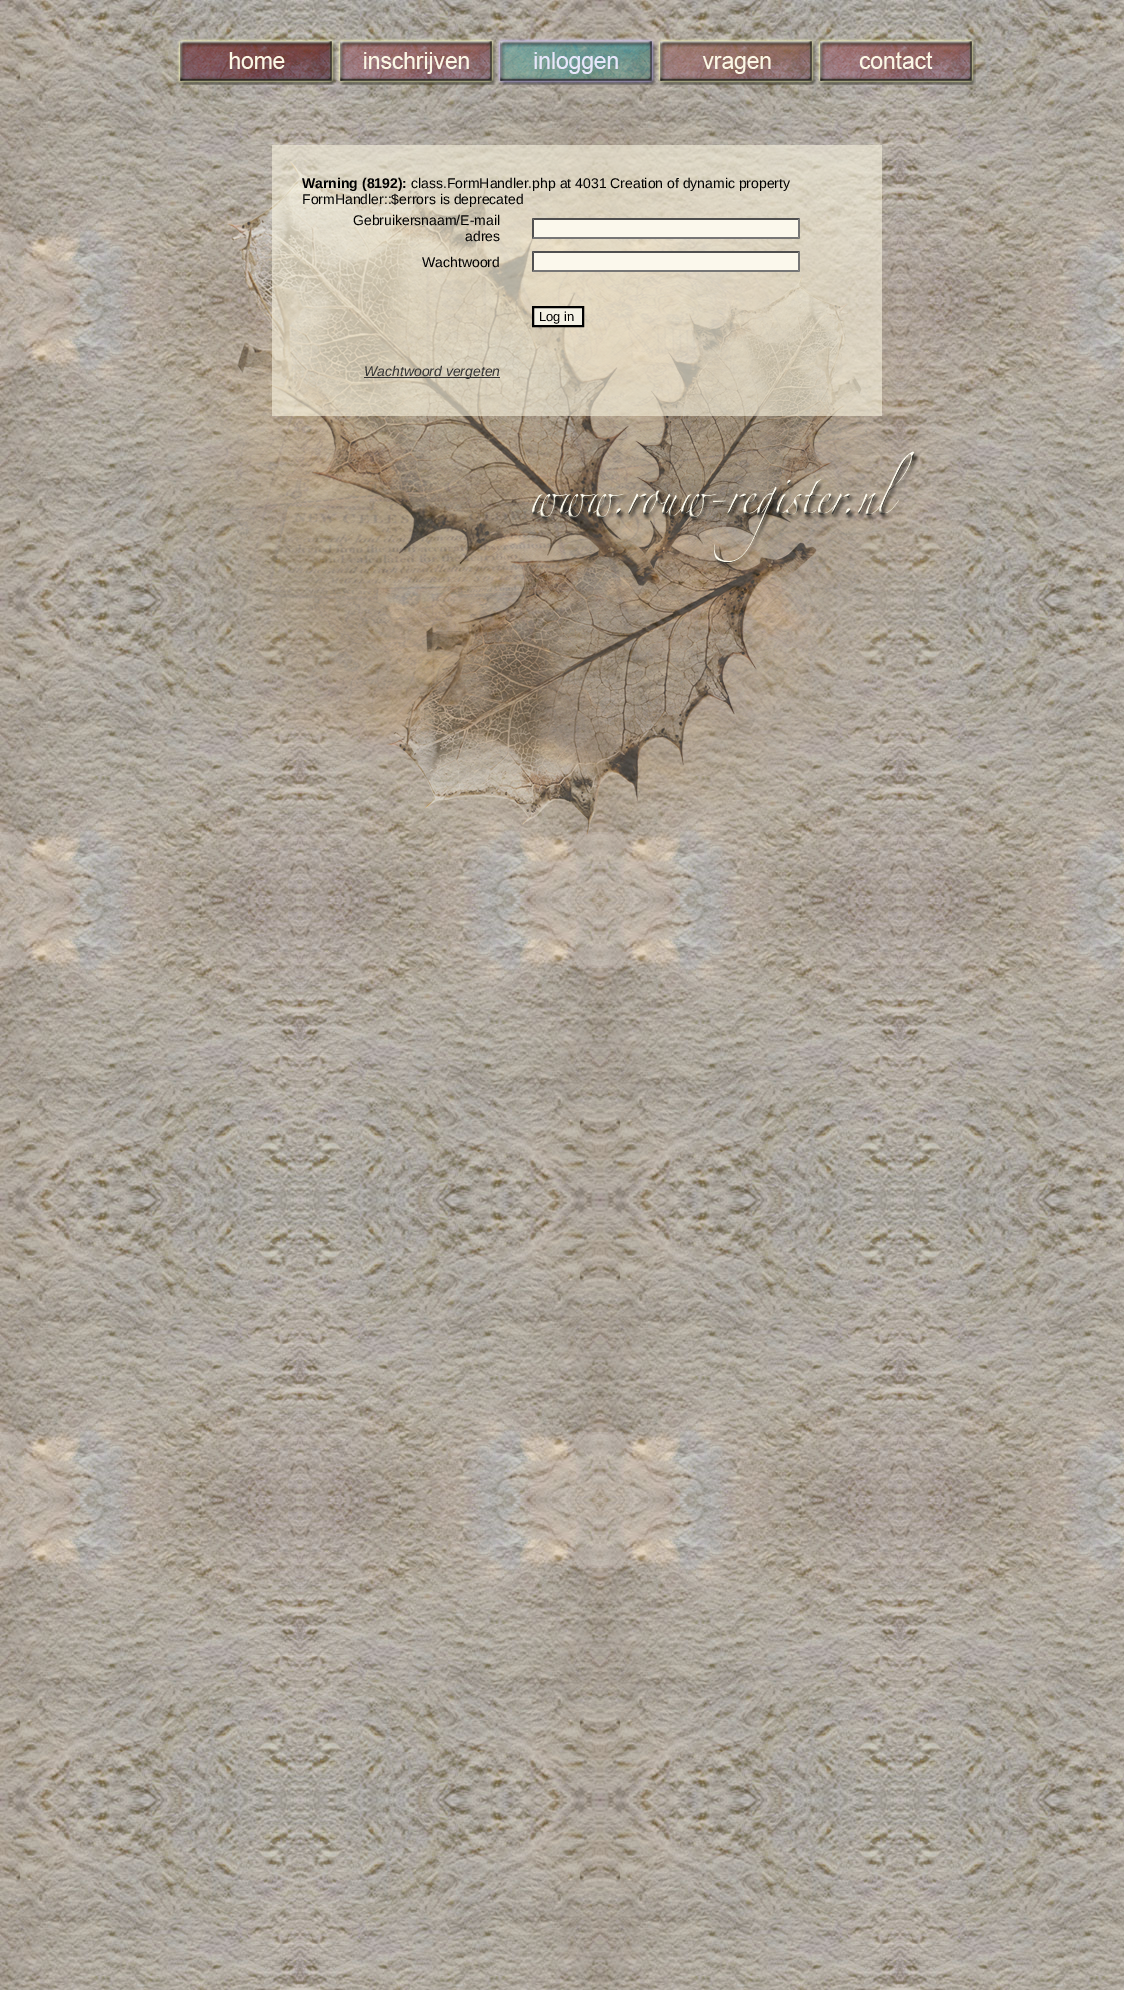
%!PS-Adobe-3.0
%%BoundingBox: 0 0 1124 1990
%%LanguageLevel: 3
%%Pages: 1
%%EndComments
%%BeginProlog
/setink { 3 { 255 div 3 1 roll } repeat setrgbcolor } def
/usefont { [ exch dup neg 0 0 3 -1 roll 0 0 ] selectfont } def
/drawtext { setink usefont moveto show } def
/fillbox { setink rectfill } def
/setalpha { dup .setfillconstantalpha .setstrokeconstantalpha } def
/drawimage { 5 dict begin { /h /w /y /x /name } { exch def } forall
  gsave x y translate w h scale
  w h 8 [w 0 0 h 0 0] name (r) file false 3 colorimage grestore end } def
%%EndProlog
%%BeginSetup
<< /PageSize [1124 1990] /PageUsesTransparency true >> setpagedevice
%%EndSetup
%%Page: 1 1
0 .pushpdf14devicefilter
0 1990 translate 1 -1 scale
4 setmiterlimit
0 0 1124 1990 255 255 255 fillbox
(assets/img1.rgb) 0 0 1124 1990 drawimage
(assets/img2.rgb) 147 128 830 734 drawimage
(assets/img3.rgb) 177 38 158 47 drawimage
(assets/img4.rgb) 335 38 161 47 drawimage
(assets/img5.rgb) 496 38 160 47 drawimage
(assets/img6.rgb) 656 38 160 47 drawimage
(assets/img7.rgb) 816 38 160 47 drawimage
0.6 setalpha
272 145 610 271 248 243 223 fillbox
1 setalpha
(Warning \(8192\):) 302 188 /LiberationSans-Bold 14 0 0 0 drawtext
(class.FormHandler.php at 4031 Creation of dynamic property) 411 188 /LiberationSans-Regular 14 0 0 0 drawtext
(FormHandler::$errors is deprecated) 302 204 /LiberationSans-Regular 14 0 0 0 drawtext
(Gebruikersnaam/E-mail) 353 225 /LiberationSans-Regular 14 0 0 0 drawtext
(adres) 465 241 /LiberationSans-Regular 14 0 0 0 drawtext
532 218 268 21 251 248 236 fillbox
79 79 79 setink
532 218 moveto 800 218 lineto 798 220 lineto 534 220 lineto closepath fill
118 118 118 setink
800 218 moveto 800 239 lineto 798 237 lineto 798 220 lineto closepath fill
800 239 moveto 532 239 lineto 534 237 lineto 798 237 lineto closepath fill
79 79 79 setink
532 239 moveto 532 218 lineto 534 220 lineto 534 237 lineto closepath fill
(Wachtwoord) 422 267 /LiberationSans-Regular 14 0 0 0 drawtext
532 251 268 21 251 248 236 fillbox
79 79 79 setink
532 251 moveto 800 251 lineto 798 253 lineto 534 253 lineto closepath fill
118 118 118 setink
800 251 moveto 800 272 lineto 798 270 lineto 798 253 lineto closepath fill
800 272 moveto 532 272 lineto 534 270 lineto 798 270 lineto closepath fill
79 79 79 setink
532 272 moveto 532 251 lineto 534 253 lineto 534 270 lineto closepath fill
244 241 229 setink
533 307 moveto 583 307 lineto 583 326 lineto 533 326 lineto closepath gsave fill grestore
0 0 0 setink
2 setlinewidth
stroke
(Log in) 539 321 /LiberationSans-Regular 13 0 0 0 drawtext
364 377 136 1 51 51 51 fillbox
(Wachtwoord vergeten) 364 376 /LiberationSans-Italic 14 51 51 51 drawtext
(assets/img8.rgb) 531 451 388 118 drawimage
.poppdf14devicefilter showpage
%%EOF
